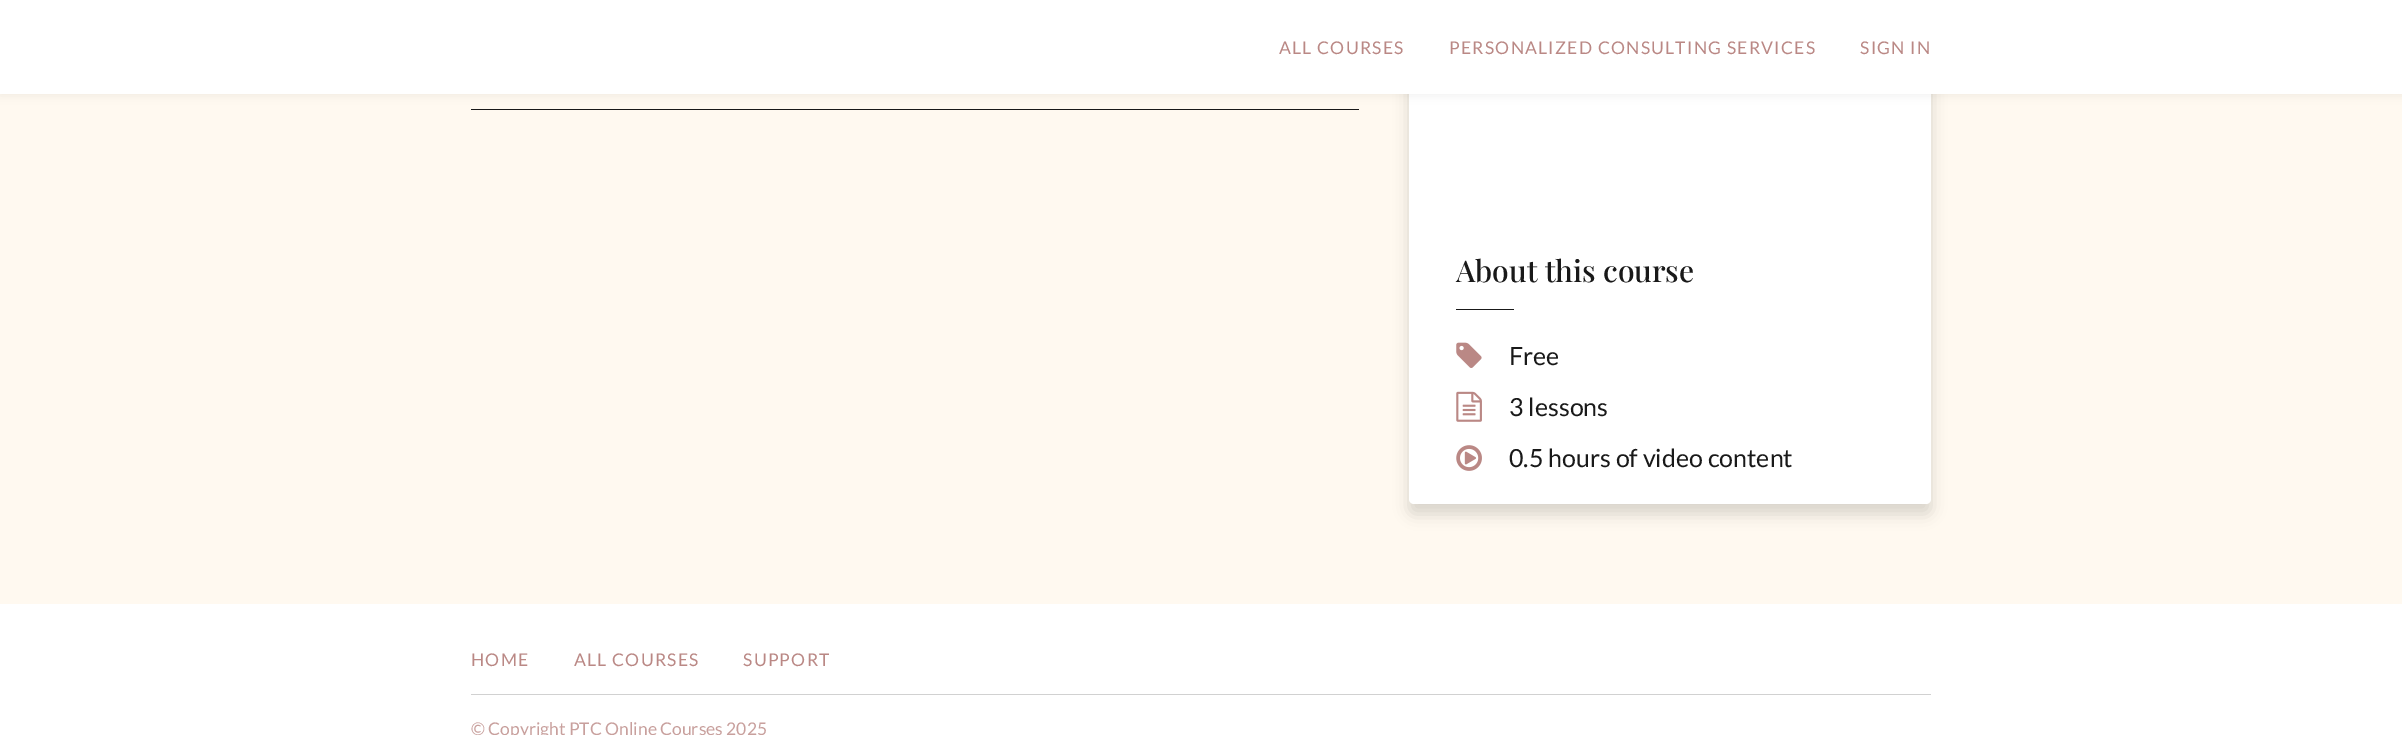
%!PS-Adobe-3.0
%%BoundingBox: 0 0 2402 735
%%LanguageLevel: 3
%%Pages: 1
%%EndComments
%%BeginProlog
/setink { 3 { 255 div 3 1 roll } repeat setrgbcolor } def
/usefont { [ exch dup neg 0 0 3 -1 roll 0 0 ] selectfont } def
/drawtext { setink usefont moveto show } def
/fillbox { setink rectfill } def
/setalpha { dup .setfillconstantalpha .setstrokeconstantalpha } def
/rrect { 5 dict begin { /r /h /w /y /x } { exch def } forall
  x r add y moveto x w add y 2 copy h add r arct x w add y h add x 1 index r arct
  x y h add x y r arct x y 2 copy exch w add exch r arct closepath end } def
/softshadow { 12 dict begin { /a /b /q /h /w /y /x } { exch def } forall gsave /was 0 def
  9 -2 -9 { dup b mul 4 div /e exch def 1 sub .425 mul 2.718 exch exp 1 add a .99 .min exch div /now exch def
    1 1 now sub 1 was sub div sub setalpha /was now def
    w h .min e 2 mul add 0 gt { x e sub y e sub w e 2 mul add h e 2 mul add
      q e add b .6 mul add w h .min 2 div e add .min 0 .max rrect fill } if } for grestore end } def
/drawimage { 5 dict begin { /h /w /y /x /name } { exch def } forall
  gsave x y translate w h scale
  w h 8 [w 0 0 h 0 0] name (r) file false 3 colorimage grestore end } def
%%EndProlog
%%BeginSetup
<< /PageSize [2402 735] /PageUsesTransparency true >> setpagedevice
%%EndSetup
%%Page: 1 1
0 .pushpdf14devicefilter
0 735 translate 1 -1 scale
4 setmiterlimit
0 0 2402 735 255 249 240 fillbox
471 109 888 1 25 25 25 fillbox
0 0 0 setink
1409 -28 522 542 5 7.5 0.15 softshadow
255 255 255 setink
1409 -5 522 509 5 rrect fill
0 0 0 setink
0 3 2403 93 0 5 0.05 softshadow
0 0 2402 94 255 255 255 fillbox
/Lato-Regular 17.5 usefont
186 136 133 setink
1279 54 moveto 1.25 0 (ALL COURSES) ashow
1449 54 moveto 1.25 0 (PERSONALIZED CONSULTING SERVICES) ashow
1860 54 moveto 1.25 0 (SIGN IN) ashow
(About this course) 1456 282 /PlayfairDisplay-Medium 30 25 25 25 drawtext
1456 309 58 1 25 25 25 fillbox
(assets/img1.rgb) 1456 342 26 26 drawimage
(Free) 1509 365 /Lato-Regular 25 25 25 25 drawtext
(assets/img2.rgb) 1456 391 26 31 drawimage
(3 lessons) 1509 416 /Lato-Regular 25 25 25 25 drawtext
(assets/img3.rgb) 1456 445 26 26 drawimage
(0.5 hours of video content) 1509 467 /Lato-Regular 25 25 25 25 drawtext
0 604 2402 131 255 255 255 fillbox
/Lato-Regular 17.5 usefont
186 136 133 setink
471 666 moveto 1.25 0 (HOME) ashow
574 666 moveto 1.25 0 (ALL COURSES) ashow
743 666 moveto 1.25 0 (SUPPORT) ashow
471 694 1460 1 209 209 209 fillbox
(© Copyright PTC Online Courses 2025) 471 735 /Lato-Regular 17.5 200 160 157 drawtext
.poppdf14devicefilter showpage
%%EOF
